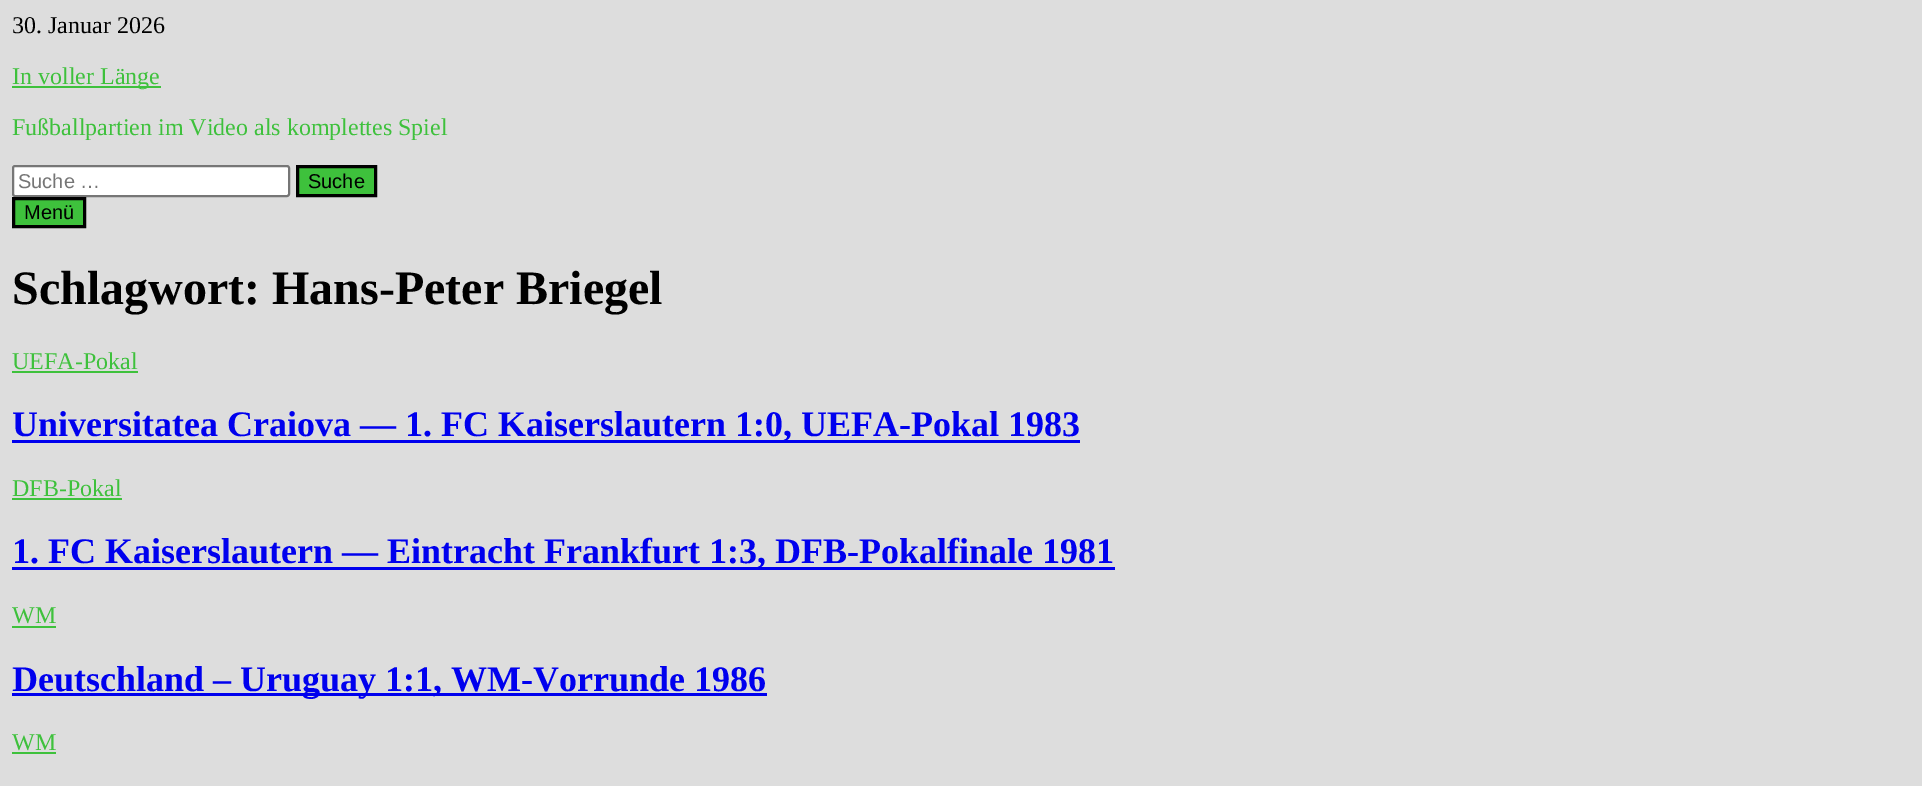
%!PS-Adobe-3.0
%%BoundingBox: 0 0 1922 786
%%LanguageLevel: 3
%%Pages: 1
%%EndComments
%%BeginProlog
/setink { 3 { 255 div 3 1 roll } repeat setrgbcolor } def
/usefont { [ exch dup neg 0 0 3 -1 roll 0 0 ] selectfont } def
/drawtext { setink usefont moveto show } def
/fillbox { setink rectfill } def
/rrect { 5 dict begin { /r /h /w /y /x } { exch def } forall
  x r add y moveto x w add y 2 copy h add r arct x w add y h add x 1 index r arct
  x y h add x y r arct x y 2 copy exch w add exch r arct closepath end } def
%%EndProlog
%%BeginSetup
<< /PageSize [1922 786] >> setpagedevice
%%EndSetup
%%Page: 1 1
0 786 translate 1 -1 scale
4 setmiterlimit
0 0 1922 786 221 221 221 fillbox
(30. Januar 2026) 12 33 /LiberationSerif-Regular 24 0 0 0 drawtext
12 86 149 2 62 193 60 fillbox
(In voller Länge) 12 84 /LiberationSerif-Regular 24 62 193 60 drawtext
(Fußballpartien im Video als komplettes Spiel) 12 135 /LiberationSerif-Regular 24 62 193 60 drawtext
255 255 255 setink
13 166 276 30 2 rrect gsave fill grestore
118 118 118 setink
2 setlinewidth
stroke
(Suche …) 18 188 /LiberationSans-Regular 20 117 117 117 drawtext
62 193 60 setink
297.5 166.5 moveto 375.5 166.5 lineto 375.5 195.5 lineto 297.5 195.5 lineto closepath gsave fill grestore
0 0 0 setink
3 setlinewidth
stroke
(Suche) 308 188 /LiberationSans-Regular 20 0 0 0 drawtext
62 193 60 setink
13.5 198.5 moveto 84.5 198.5 lineto 84.5 226.5 lineto 13.5 226.5 lineto closepath gsave fill grestore
0 0 0 setink
stroke
(Menü) 24 219 /LiberationSans-Regular 20 0 0 0 drawtext
(Schlagwort: Hans-Peter Briegel) 12 304 /LiberationSerif-Bold 48 0 0 0 drawtext
(UEFA-Pokal) 12 369 /LiberationSerif-Regular 24 62 193 60 drawtext
12 371 126 2 62 193 60 fillbox
12 440 1068 3 0 0 238 fillbox
(Universitatea Craiova — 1. FC Kaiserslautern 1:0, UEFA-Pokal 1983) 12 436 /LiberationSerif-Bold 36 0 0 238 drawtext
(DFB-Pokal) 12 496 /LiberationSerif-Regular 24 62 193 60 drawtext
12 498 110 2 62 193 60 fillbox
12 567 1103 3 0 0 238 fillbox
(1. FC Kaiserslautern — Eintracht Frankfurt 1:3, DFB-Pokalfinale 1981) 12 563 /LiberationSerif-Bold 36 0 0 238 drawtext
(WM) 12 623 /LiberationSerif-Regular 24 62 193 60 drawtext
12 626 44 2 62 193 60 fillbox
12 693 755 3 0 0 238 fillbox
(Deutschland – Uruguay 1:1, WM-Vorrunde 1986) 12 691 /LiberationSerif-Bold 36 0 0 238 drawtext
(WM) 12 750 /LiberationSerif-Regular 24 62 193 60 drawtext
12 752 44 2 62 193 60 fillbox
showpage
%%EOF
